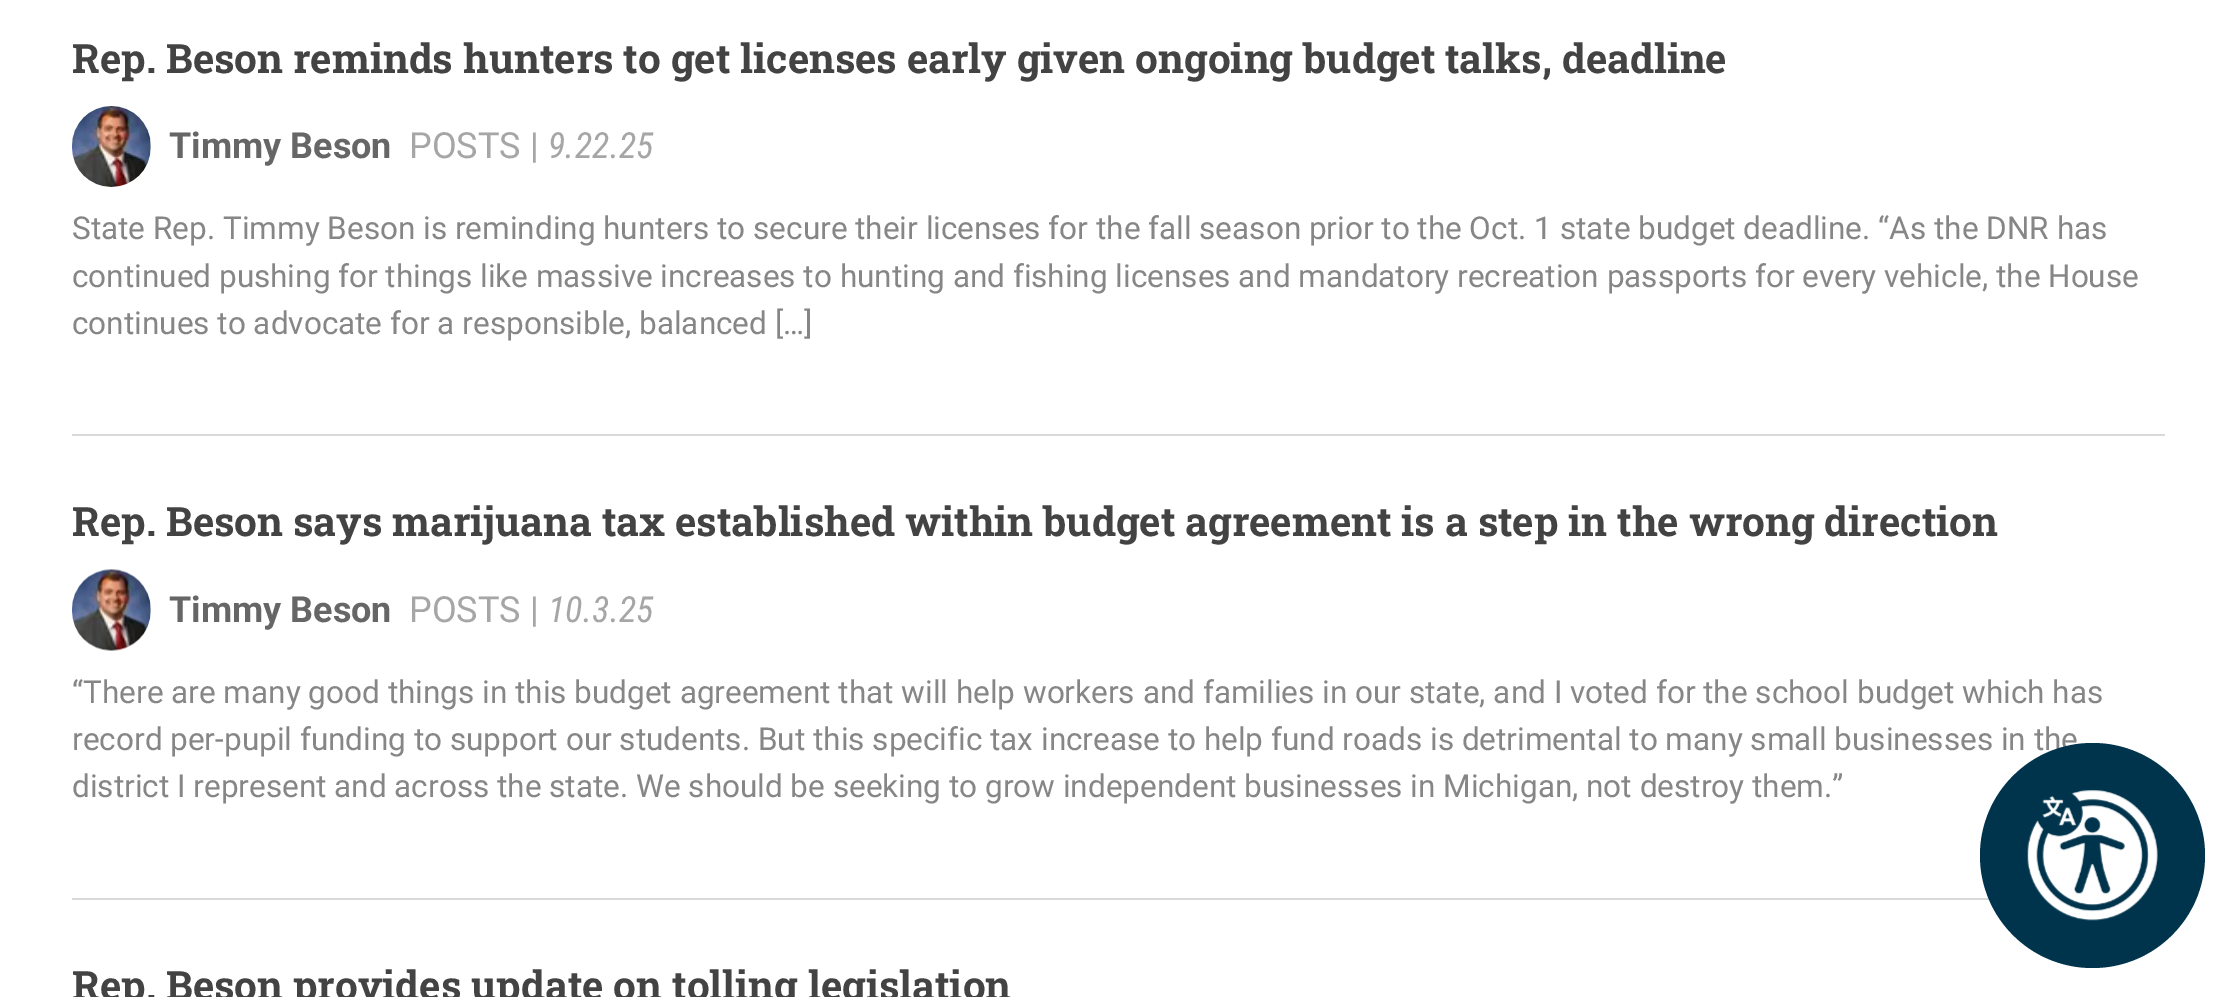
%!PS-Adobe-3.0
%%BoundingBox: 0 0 2236 997
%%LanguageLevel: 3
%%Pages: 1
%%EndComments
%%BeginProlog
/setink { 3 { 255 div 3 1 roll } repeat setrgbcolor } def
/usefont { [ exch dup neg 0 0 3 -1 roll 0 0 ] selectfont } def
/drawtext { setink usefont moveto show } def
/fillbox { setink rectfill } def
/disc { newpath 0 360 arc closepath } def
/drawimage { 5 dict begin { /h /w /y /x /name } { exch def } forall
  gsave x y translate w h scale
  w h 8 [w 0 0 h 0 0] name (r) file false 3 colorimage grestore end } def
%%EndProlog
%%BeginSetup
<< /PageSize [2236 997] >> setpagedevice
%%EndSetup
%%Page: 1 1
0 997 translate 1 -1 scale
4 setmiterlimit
0 0 2236 997 255 255 255 fillbox
(Rep. Beson reminds hunters to get licenses early given ongoing budget talks, deadline) 72 73 /RobotoSlab-Bold 40.5 67 67 67 drawtext
(assets/img1.rgb) 72 106 79 81 drawimage
(Timmy Beson) 169 158 /Roboto-Bold 36 102 102 102 drawtext
(POSTS |) 409 158 /Roboto-Regular 36 166 166 166 drawtext
(9.22.25) 548 158 /RobotoCondensed-Italic 36 166 166 166 drawtext
(State Rep. Timmy Beson is reminding hunters to secure their licenses for the fall season prior to the Oct. 1 state budget deadline. “As the DNR has) 72 239 /Roboto-Regular 31.5 134 134 134 drawtext
(continued pushing for things like massive increases to hunting and fishing licenses and mandatory recreation passports for every vehicle, the House) 72 287 /Roboto-Regular 31.5 134 134 134 drawtext
(continues to advocate for a responsible, balanced […]) 72 334 /Roboto-Regular 31.5 134 134 134 drawtext
72 434 2093 2 218 218 218 fillbox
(Rep. Beson says marijuana tax established within budget agreement is a step in the wrong direction) 72 536 /RobotoSlab-Bold 40.5 67 67 67 drawtext
(assets/img2.rgb) 72 569 79 82 drawimage
(Timmy Beson) 169 622 /Roboto-Bold 36 102 102 102 drawtext
(POSTS |) 409 622 /Roboto-Regular 36 166 166 166 drawtext
(10.3.25) 548 622 /RobotoCondensed-Italic 36 166 166 166 drawtext
(“There are many good things in this budget agreement that will help workers and families in our state, and I voted for the school budget which has) 72 703 /Roboto-Regular 31.5 134 134 134 drawtext
(record per-pupil funding to support our students. But this specific tax increase to help fund roads is detrimental to many small businesses in the) 72 750 /Roboto-Regular 31.5 134 134 134 drawtext
(district I represent and across the state. We should be seeking to grow independent businesses in Michigan, not destroy them.”) 72 797 /Roboto-Regular 31.5 134 134 134 drawtext
72 898 1918 2 218 218 218 fillbox
(Rep. Beson provides update on tolling legislation) 72 1000 /RobotoSlab-Bold 40.5 67 67 67 drawtext
0 52 76 setink
2092.5 855.5 112.5 disc fill
(assets/img3.rgb) 2027 790 131 131 drawimage
showpage
%%EOF
